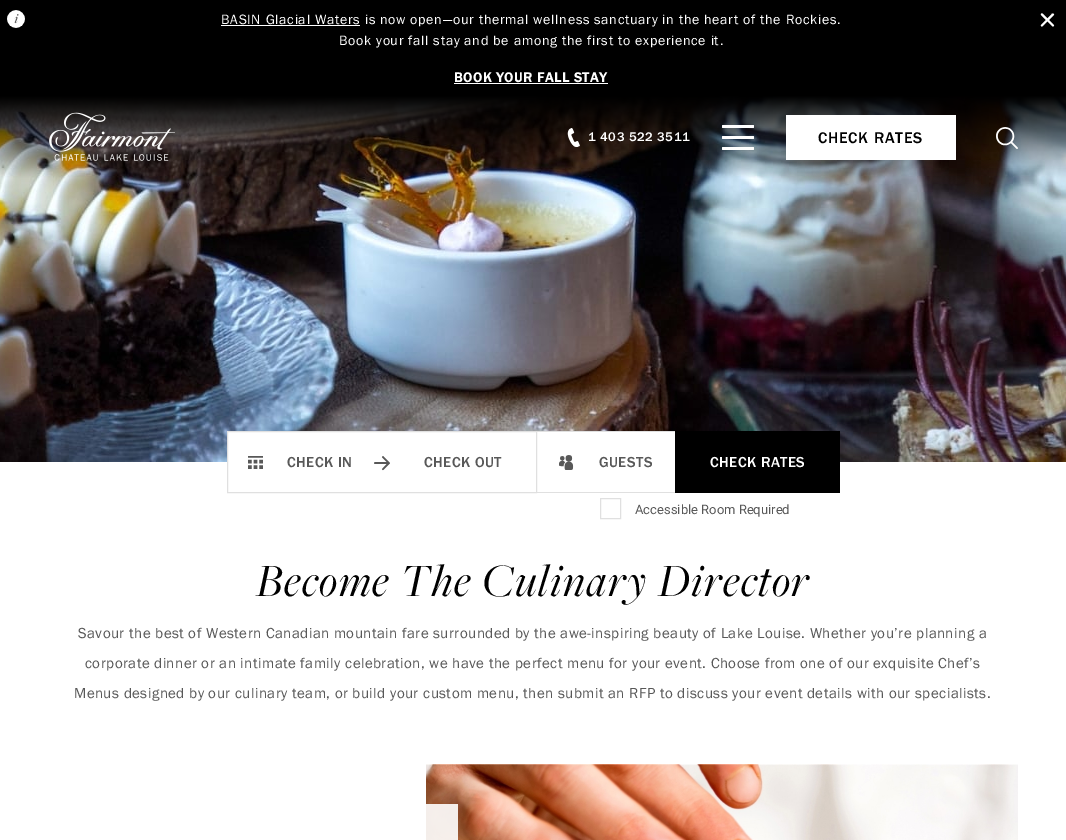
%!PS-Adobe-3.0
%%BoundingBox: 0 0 1066 840
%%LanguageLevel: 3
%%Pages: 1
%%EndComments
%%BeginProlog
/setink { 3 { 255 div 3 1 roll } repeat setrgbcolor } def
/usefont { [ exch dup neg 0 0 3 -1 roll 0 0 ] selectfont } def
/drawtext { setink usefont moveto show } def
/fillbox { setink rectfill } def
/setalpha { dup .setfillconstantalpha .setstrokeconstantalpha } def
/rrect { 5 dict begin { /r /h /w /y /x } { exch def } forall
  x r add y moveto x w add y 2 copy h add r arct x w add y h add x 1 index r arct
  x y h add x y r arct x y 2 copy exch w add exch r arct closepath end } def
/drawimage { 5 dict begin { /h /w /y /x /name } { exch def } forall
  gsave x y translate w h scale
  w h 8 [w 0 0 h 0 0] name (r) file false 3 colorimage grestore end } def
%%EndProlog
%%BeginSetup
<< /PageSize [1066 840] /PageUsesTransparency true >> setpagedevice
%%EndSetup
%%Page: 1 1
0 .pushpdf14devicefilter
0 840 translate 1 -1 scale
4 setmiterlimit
0 0 1066 840 255 255 255 fillbox
0 0 1066 96 0 0 0 fillbox
(assets/img1.rgb) 7 10 18 18 drawimage
221 25 139 1 255 255 255 fillbox
/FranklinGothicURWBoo-Regular 14 usefont
221 24 moveto 0.7 0 (BASIN Glacial Waters is now open—our thermal wellness sanctuary in the heart of the Rockies.) ashow
339 45 moveto 0.7 0 (Book your fall stay and be among the first to experience it.) ashow
/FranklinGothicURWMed-Bold 14 usefont
454 82 moveto 0.7 0 (BOOK YOUR FALL STAY) ashow
454 83 154 1 255 255 255 fillbox
(assets/img2.rgb) 1040 13 15 14 drawimage
(assets/img6.rgb) 0 96 1066 366 drawimage
(assets/img3.rgb) 49 112 126 49 drawimage
(assets/img4.rgb) 567 128 13 19 drawimage
/FranklinGothicURWMed-Regular 13 usefont
588 141 moveto 0.6 0 (1 403 522 3511) ashow
722 125 32 3 1 rrect fill
722 136 32 3 1 rrect fill
722 147 32 3 1 rrect fill
786 115 170 45 255 255 255 fillbox
/FranklinGothicURWMed-Regular 16 usefont
0 0 0 setink
818 143 moveto 0.75 0 (CHECK RATES) ashow
(assets/img5.rgb) 996 127 22 22 drawimage
228 432 447 30 255 255 255 fillbox
224 224 224 setink
227.5 431.5 309 61 rectstroke
(assets/img7.rgb) 248 456 15 13 drawimage
/FranklinGothicURWMed-Regular 15 usefont
88 88 88 setink
287 467 moveto 0.45 0 (CHECK IN) ashow
(assets/img8.rgb) 374 456 16 15 drawimage
424 467 moveto 0.45 0 (CHECK OUT) ashow
537 431 138 1 224 224 224 fillbox
537 492 138 1 224 224 224 fillbox
(assets/img9.rgb) 559 455 15 15 drawimage
88 88 88 setink
599 467 moveto 0.45 0 (GUESTS) ashow
675 431 165 62 0 0 0 fillbox
255 255 255 setink
710 467 moveto 0.45 0 (CHECK RATES) ashow
224 224 224 setink
600.5 498.5 20 20 rectstroke
(Accessible Room Required) 635 514 /Roboto-Regular 13 88 88 88 drawtext
/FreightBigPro-Italic 48 usefont
0 0 0 setink
256 596 moveto 1.45 0 (Become The Culinary Director) ashow
/FranklinGothicURWBoo-Regular 15 usefont
88 88 88 setink
78 638 moveto 0.45 0 (Savour the best of Western Canadian mountain fare surrounded by the awe-inspiring beauty of Lake Louise. Whether you’re planning a) ashow
85 668 moveto 0.45 0 (corporate dinner or an intimate family celebration, we have the perfect menu for your event. Choose from one of our exquisite Chef’s) ashow
74 698 moveto 0.45 0 (Menus designed by our culinary team, or build your custom menu, then submit an RFP to discuss your event details with our specialists.) ashow
(assets/img10.rgb) 426 764 592 76 drawimage
0.9 setalpha
426 804 32 36 255 255 255 fillbox
.poppdf14devicefilter showpage
%%EOF
